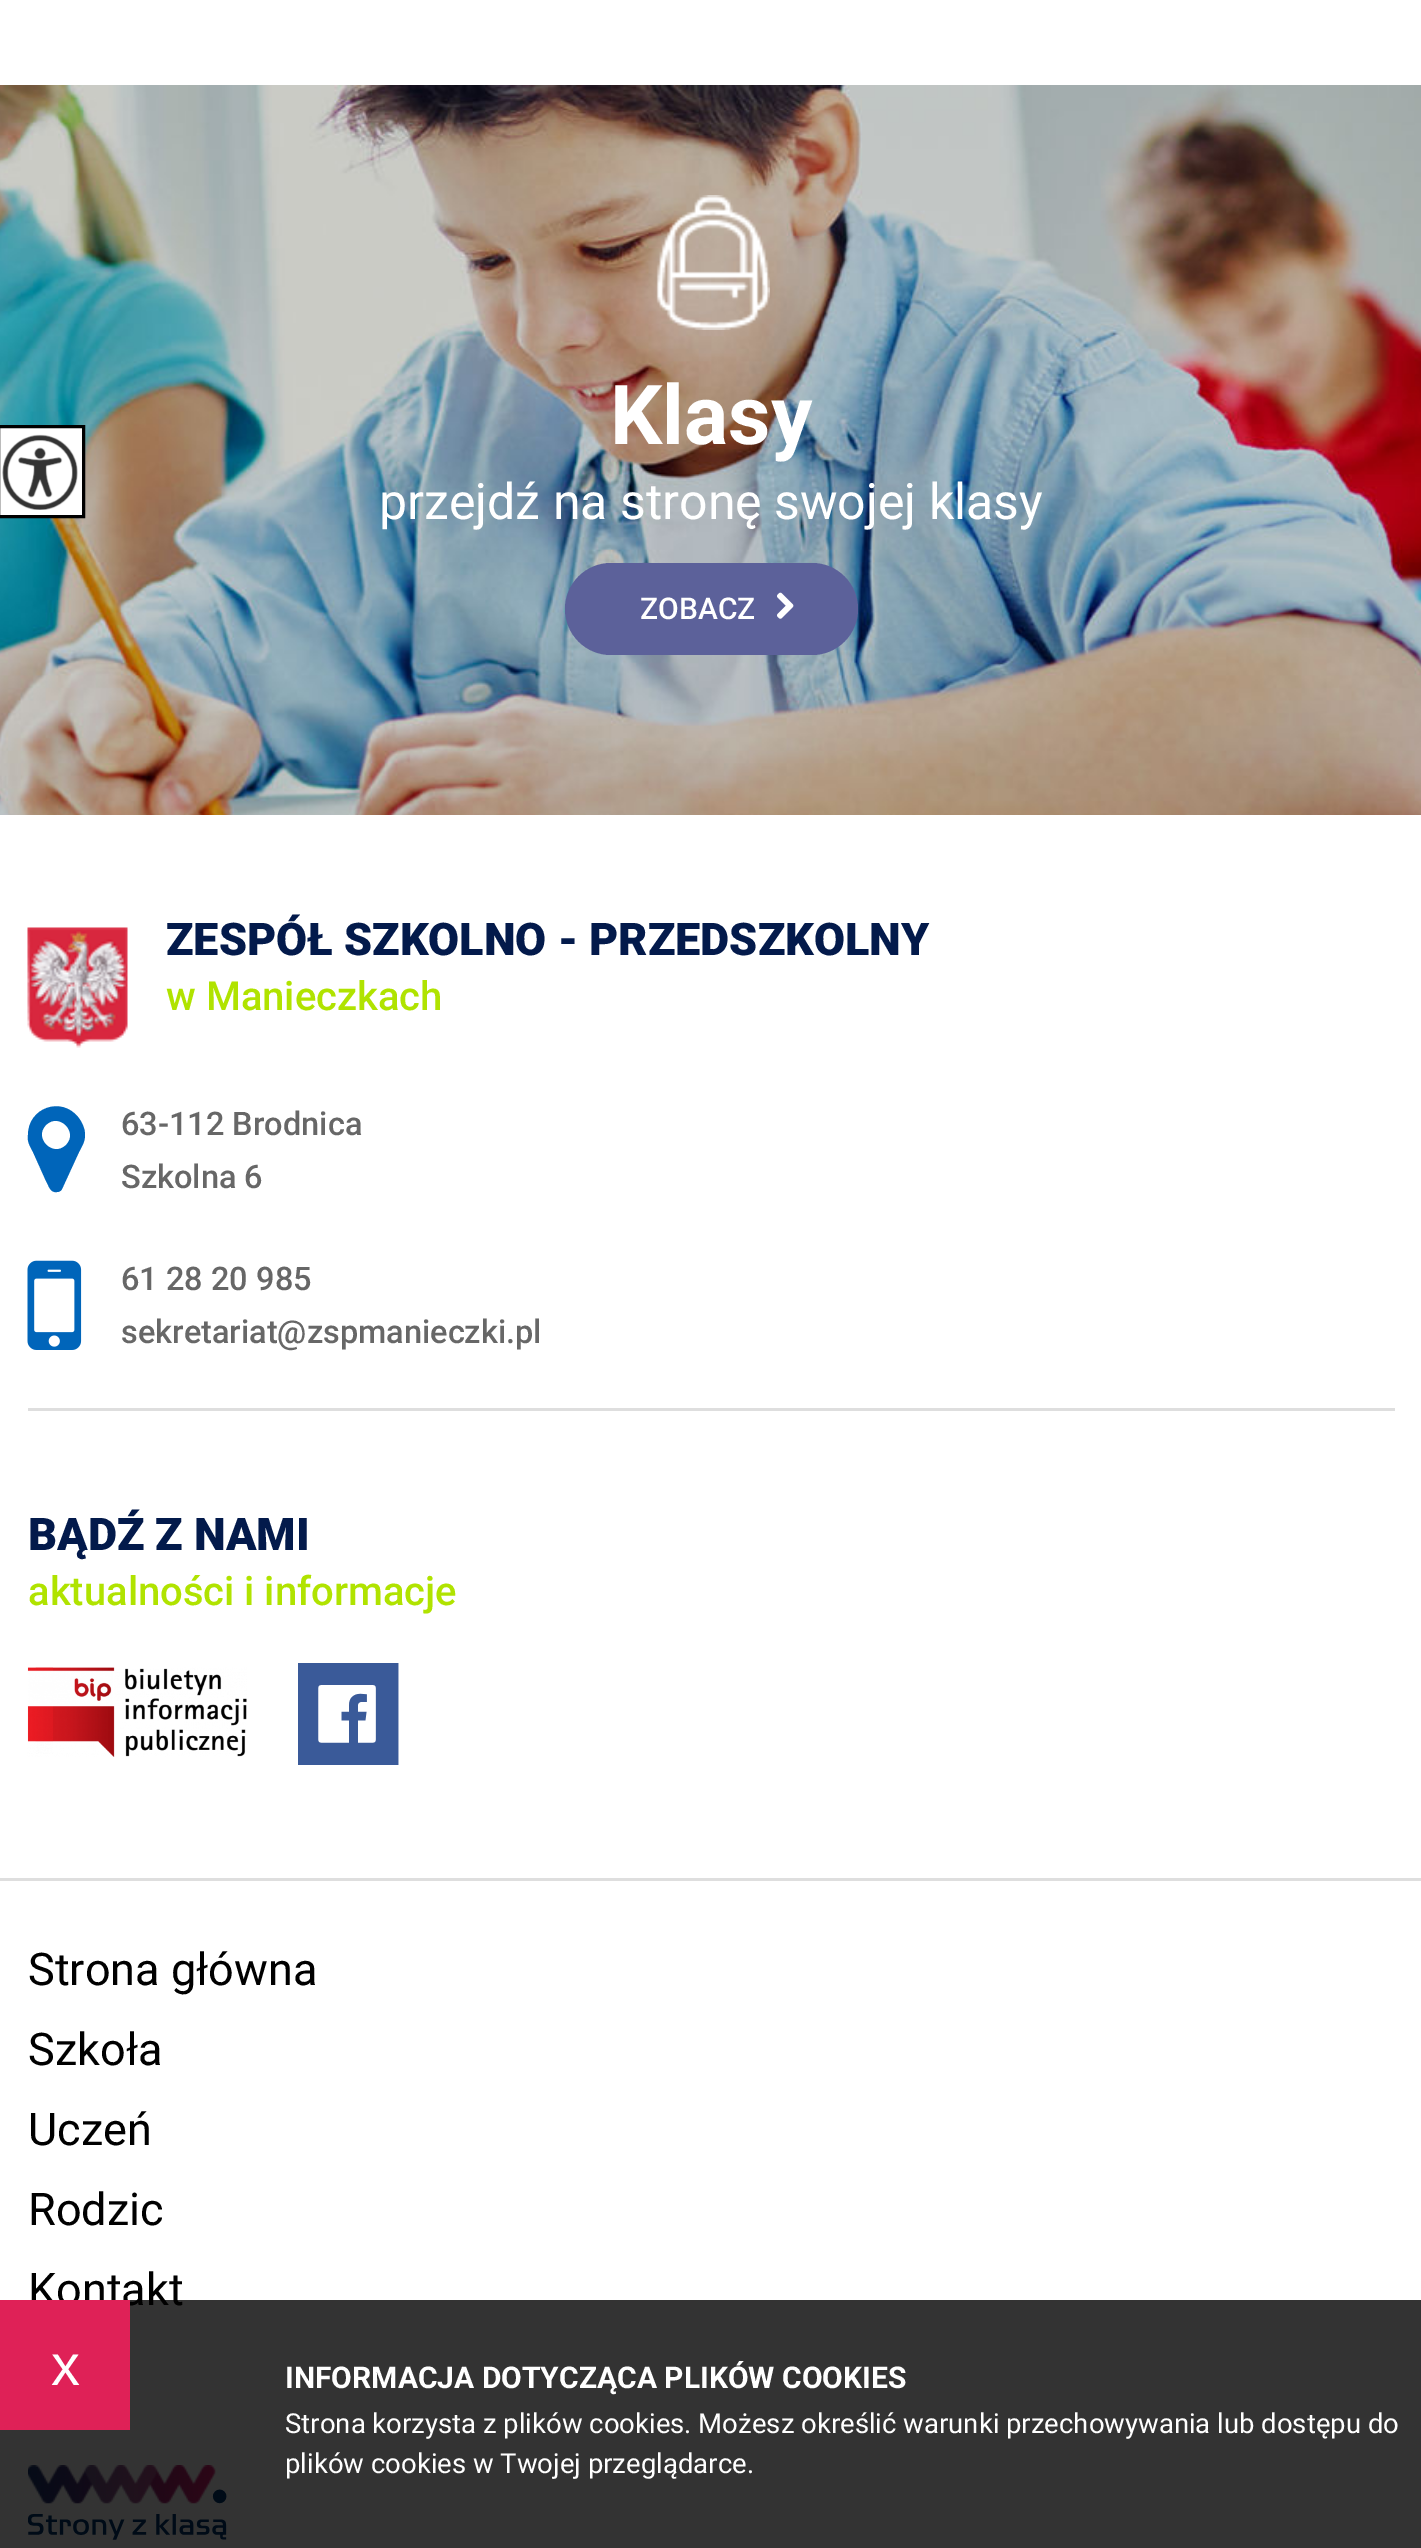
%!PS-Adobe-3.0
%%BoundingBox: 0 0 1421 2548
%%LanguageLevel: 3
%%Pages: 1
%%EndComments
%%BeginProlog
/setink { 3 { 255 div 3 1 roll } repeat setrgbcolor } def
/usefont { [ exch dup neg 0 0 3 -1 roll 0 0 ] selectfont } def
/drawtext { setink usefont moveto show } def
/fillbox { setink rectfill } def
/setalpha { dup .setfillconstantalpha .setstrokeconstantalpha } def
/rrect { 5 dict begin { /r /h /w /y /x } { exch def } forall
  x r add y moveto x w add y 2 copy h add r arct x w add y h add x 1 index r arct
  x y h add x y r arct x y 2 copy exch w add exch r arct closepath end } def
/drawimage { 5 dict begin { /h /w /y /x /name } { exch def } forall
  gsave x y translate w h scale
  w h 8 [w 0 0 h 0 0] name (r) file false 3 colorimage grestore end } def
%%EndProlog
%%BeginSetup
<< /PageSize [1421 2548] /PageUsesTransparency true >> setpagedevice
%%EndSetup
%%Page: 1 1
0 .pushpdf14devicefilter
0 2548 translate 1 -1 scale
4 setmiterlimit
0 0 1421 2548 255 255 255 fillbox
(assets/img2.rgb) 0 85 1421 730 drawimage
-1.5 426.5 moveto 83.5 426.5 lineto 83.5 516.5 lineto -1.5 516.5 lineto closepath gsave fill grestore
0 0 0 setink
3 setlinewidth
stroke
(assets/img1.rgb) 2 434 76 76 drawimage
(assets/img3.rgb) 656 195 114 135 drawimage
(Klasy) 610 444 /Roboto-Bold 82.5 255 255 255 drawtext
(przejdź na stronę swojej klasy) 379 519 /Roboto-Regular 50 255 255 255 drawtext
92 97 154 setink
565 563 293 92 46 rrect fill
(ZOBACZ) 640 619 /Roboto-Medium 30 255 255 255 drawtext
(assets/img4.rgb) 777 592 17 27 drawimage
28 1408 1367 3 222 222 222 fillbox
(assets/img5.rgb) 27 927 101 121 drawimage
(ZESPÓŁ SZKOLNO - PRZEDSZKOLNY) 166 955 /Roboto-Black 45 3 26 75 drawtext
(w Manieczkach) 166 1010 /Roboto-Medium 40 176 227 0 drawtext
0 101 186 setink
66 1145 moveto 79 1132 59 1112 46 1125 curveto 33 1138 53 1158 66 1145 curveto closepath 85 1135 moveto 85 1142 82 1146 79 1152 curveto 62 1189 lineto 61 1191 59 1192 57 1192 curveto 50 1193 49 1186 46 1181 curveto 33 1152 lineto 30 1146 27 1142 28 1135 curveto 28 1108 61 1096 78 1117 curveto 82 1122 85 1128 85 1135 curveto closepath fill
(63-112 Brodnica) 121 1135 /Roboto-Medium 32.5 103 103 103 drawtext
(Szkolna 6) 121 1188 /Roboto-Medium 32.5 103 103 103 drawtext
(assets/img6.rgb) 27 1260 55 90 drawimage
(61 28 20 985) 121 1290 /Roboto-Medium 32.5 103 103 103 drawtext
(sekretariat@zspmanieczki.pl) 121 1343 /Roboto-Medium 32.5 103 103 103 drawtext
(BĄDŹ Z NAMI) 28 1550 /Roboto-Black 45 3 26 75 drawtext
(aktualności i informacje) 28 1605 /Roboto-Medium 40 176 227 0 drawtext
(assets/img7.rgb) 27 1667 220 90 drawimage
(assets/img8.rgb) 298 1663 101 102 drawimage
0 1878 1421 3 222 222 222 fillbox
(Strona główna) 28 1985 /Roboto-Regular 45 0 0 0 drawtext
(Szkoła) 28 2065 /Roboto-Regular 45 0 0 0 drawtext
(Uczeń) 28 2145 /Roboto-Regular 45 0 0 0 drawtext
(Rodzic) 28 2225 /Roboto-Regular 45 0 0 0 drawtext
(Kontakt) 28 2305 /Roboto-Regular 45 0 0 0 drawtext
(assets/img9.rgb) 28 2465 199 75 drawimage
0.8 setalpha
0 2300 1421 248 0 0 0 fillbox
1 setalpha
0 2300 130 130 223 33 87 fillbox
(x) 51 2385 /LiberationSans-Regular 58 255 255 255 drawtext
(INFORMACJA DOTYCZĄCA PLIKÓW COOKIES) 285 2388 /Roboto-Bold 30 255 255 255 drawtext
(Strona korzysta z plików cookies. Możesz określić warunki przechowywania lub dostępu do) 285 2433 /Roboto-Regular 27.5 255 255 255 drawtext
(plików cookies w Twojej przeglądarce.) 285 2473 /Roboto-Regular 27.5 255 255 255 drawtext
.poppdf14devicefilter showpage
%%EOF
